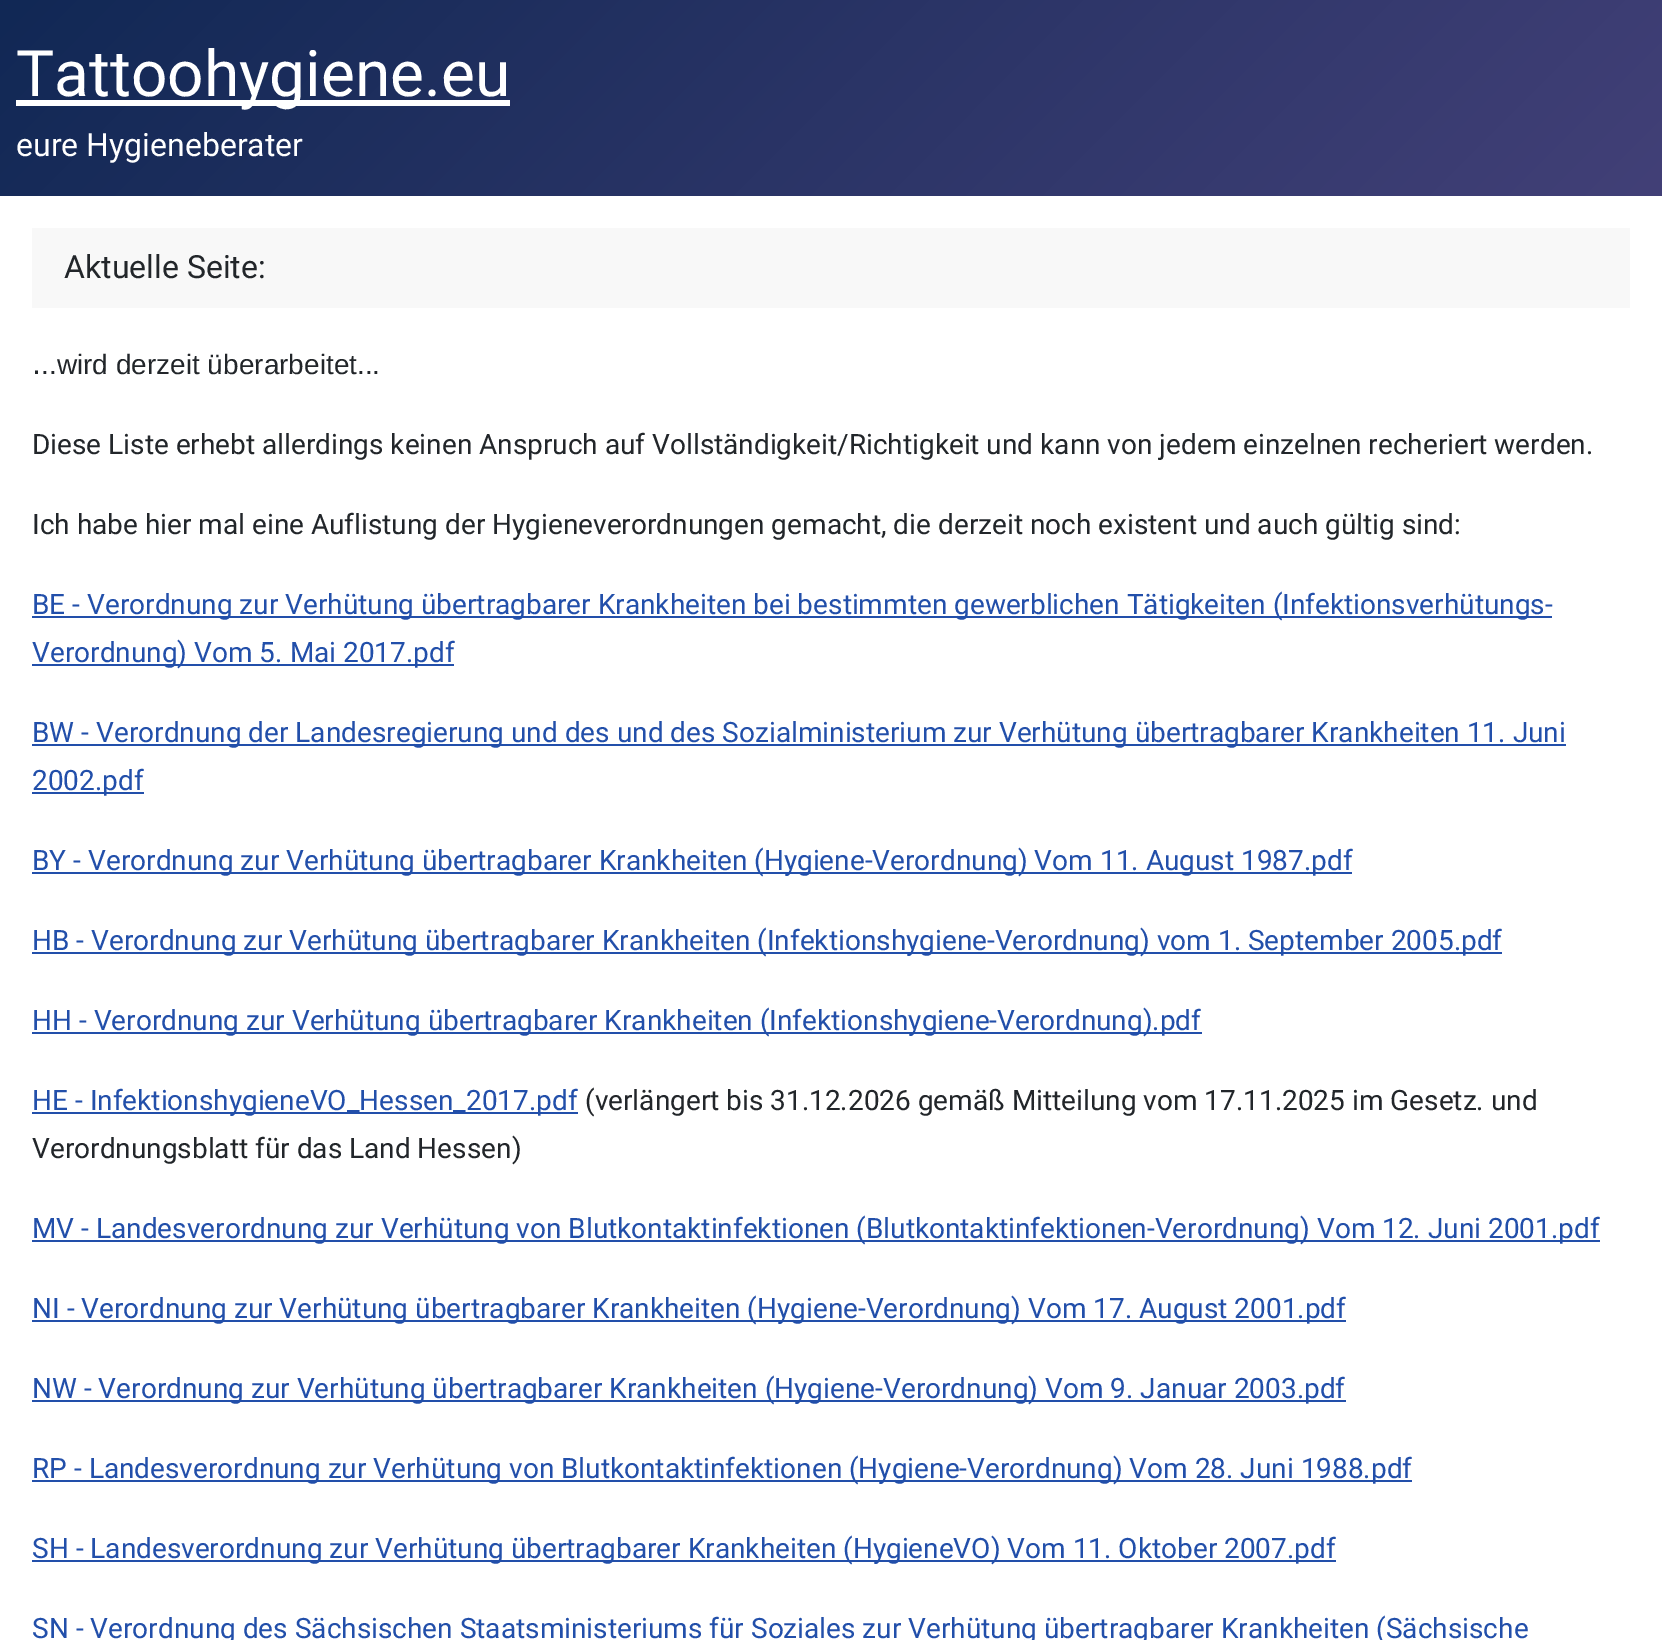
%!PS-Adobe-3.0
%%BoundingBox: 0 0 1662 1640
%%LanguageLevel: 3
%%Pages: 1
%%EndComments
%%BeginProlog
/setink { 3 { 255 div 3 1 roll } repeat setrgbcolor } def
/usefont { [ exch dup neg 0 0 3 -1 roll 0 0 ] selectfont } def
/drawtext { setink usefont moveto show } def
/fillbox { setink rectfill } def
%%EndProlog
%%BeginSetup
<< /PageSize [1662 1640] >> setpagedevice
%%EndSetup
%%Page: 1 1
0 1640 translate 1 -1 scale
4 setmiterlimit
0 0 1662 1640 255 255 255 fillbox
gsave 0 0 moveto 1662 0 lineto 1662 196 lineto 0 196 lineto closepath clip newpath
<< /ShadingType 2 /ColorSpace /DeviceRGB /Coords [366 -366 1296 563] /Extend [true true] /Function << /FunctionType 2 /Domain [0 1] /C0 [0.067 0.157 0.333] /C1 [0.259 0.251 0.467] /N 1 >> >> shfill grestore
16 100 494 6 255 255 255 fillbox
(Tattoohygiene.eu) 16 96 /Roboto-Regular 64 255 255 255 drawtext
(eure Hygieneberater) 16 156 /Roboto-Regular 32 255 255 255 drawtext
32 228 1598 80 248 248 248 fillbox
(Aktuelle Seite:) 64 278 /Roboto-Regular 32 34 38 42 drawtext
(.) 32 374 /LiberationSans-Regular 32 34 38 42 drawtext
(..wird derzeit überarbeitet...) 41 374 /LiberationSans-Regular 28 34 38 42 drawtext
(Diese Liste erhebt allerdings keinen Anspruch auf Vollständigkeit/Richtigkeit und kann von jedem einzelnen recheriert werden.) 32 454 /Roboto-Regular 28 34 38 42 drawtext
(Ich habe hier mal eine Auflistung der Hygieneverordnungen gemacht, die derzeit noch existent und auch gültig sind:) 32 534 /Roboto-Regular 28 34 38 42 drawtext
32 616 1520 2 34 79 170 fillbox
(BE - Verordnung zur Verhütung übertragbarer Krankheiten bei bestimmten gewerblichen Tätigkeiten \(Infektionsverhütungs-) 32 614 /Roboto-Regular 28 34 79 170 drawtext
32 664 422 2 34 79 170 fillbox
(Verordnung\) Vom 5. Mai 2017.pdf) 32 662 /Roboto-Regular 28 34 79 170 drawtext
32 744 1534 2 34 79 170 fillbox
(BW - Verordnung der Landesregierung und des und des Sozialministerium zur Verhütung übertragbarer Krankheiten 11. Juni) 32 742 /Roboto-Regular 28 34 79 170 drawtext
32 792 112 2 34 79 170 fillbox
(2002.pdf) 32 790 /Roboto-Regular 28 34 79 170 drawtext
32 872 1320 2 34 79 170 fillbox
(BY - Verordnung zur Verhütung übertragbarer Krankheiten \(Hygiene-Verordnung\) Vom 11. August 1987.pdf) 32 870 /Roboto-Regular 28 34 79 170 drawtext
32 952 1470 2 34 79 170 fillbox
(HB - Verordnung zur Verhütung übertragbarer Krankheiten \(Infektionshygiene-Verordnung\) vom 1. September 2005.pdf) 32 950 /Roboto-Regular 28 34 79 170 drawtext
32 1032 1170 2 34 79 170 fillbox
(HH - Verordnung zur Verhütung übertragbarer Krankheiten \(Infektionshygiene-Verordnung\).pdf) 32 1030 /Roboto-Regular 28 34 79 170 drawtext
32 1112 546 2 34 79 170 fillbox
(HE - InfektionshygieneVO_Hessen_2017.pdf) 32 1110 /Roboto-Regular 28 34 79 170 drawtext
(\(verlängert bis 31.12.2026 gemäß Mitteilung vom 17.11.2025 im Gesetz. und) 585 1110 /Roboto-Regular 28 34 38 42 drawtext
(Verordnungsblatt für das Land Hessen\)) 32 1158 /Roboto-Regular 28 34 38 42 drawtext
32 1240 1568 2 34 79 170 fillbox
(MV - Landesverordnung zur Verhütung von Blutkontaktinfektionen \(Blutkontaktinfektionen-Verordnung\) Vom 12. Juni 2001.pdf) 32 1238 /Roboto-Regular 28 34 79 170 drawtext
32 1320 1314 2 34 79 170 fillbox
(NI - Verordnung zur Verhütung übertragbarer Krankheiten \(Hygiene-Verordnung\) Vom 17. August 2001.pdf) 32 1318 /Roboto-Regular 28 34 79 170 drawtext
32 1400 1314 2 34 79 170 fillbox
(NW - Verordnung zur Verhütung übertragbarer Krankheiten \(Hygiene-Verordnung\) Vom 9. Januar 2003.pdf) 32 1398 /Roboto-Regular 28 34 79 170 drawtext
32 1480 1380 2 34 79 170 fillbox
(RP - Landesverordnung zur Verhütung von Blutkontaktinfektionen \(Hygiene-Verordnung\) Vom 28. Juni 1988.pdf) 32 1478 /Roboto-Regular 28 34 79 170 drawtext
32 1560 1304 2 34 79 170 fillbox
(SH - Landesverordnung zur Verhütung übertragbarer Krankheiten \(HygieneVO\) Vom 11. Oktober 2007.pdf) 32 1558 /Roboto-Regular 28 34 79 170 drawtext
(SN - Verordnung des Sächsischen Staatsministeriums für Soziales zur Verhütung übertragbarer Krankheiten \(Sächsische) 32 1638 /Roboto-Regular 28 34 79 170 drawtext
showpage
%%EOF
